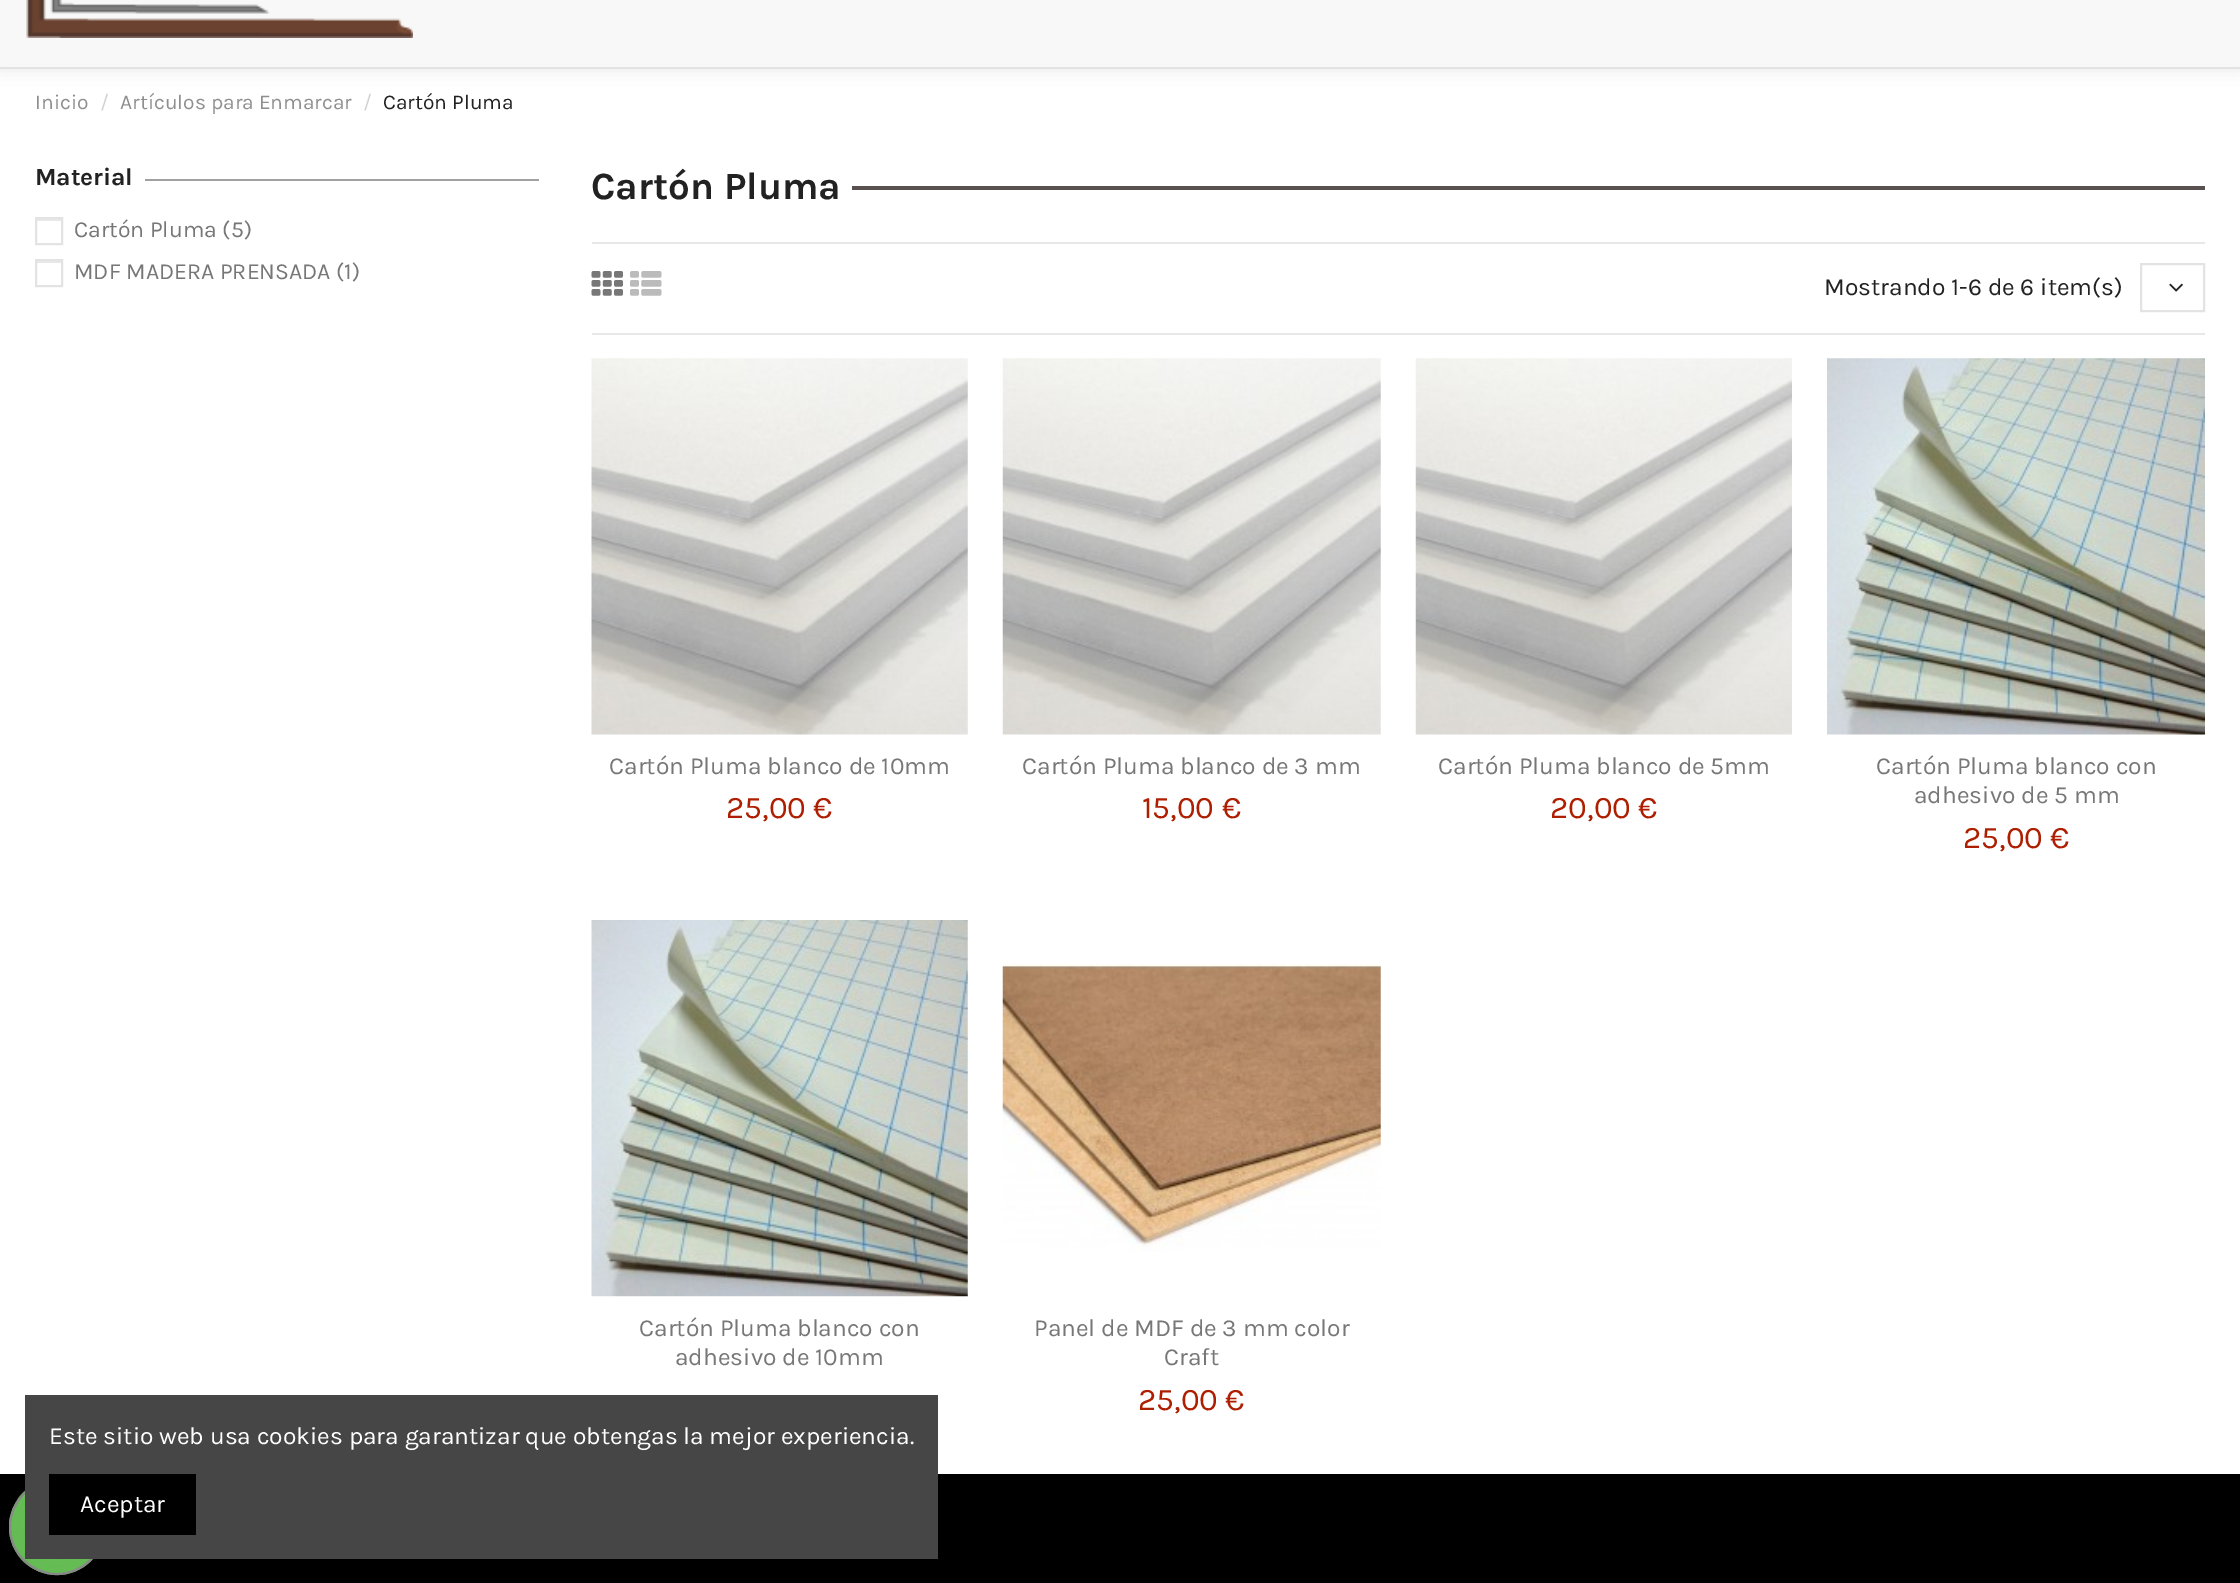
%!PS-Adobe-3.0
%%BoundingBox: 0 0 2240 1583
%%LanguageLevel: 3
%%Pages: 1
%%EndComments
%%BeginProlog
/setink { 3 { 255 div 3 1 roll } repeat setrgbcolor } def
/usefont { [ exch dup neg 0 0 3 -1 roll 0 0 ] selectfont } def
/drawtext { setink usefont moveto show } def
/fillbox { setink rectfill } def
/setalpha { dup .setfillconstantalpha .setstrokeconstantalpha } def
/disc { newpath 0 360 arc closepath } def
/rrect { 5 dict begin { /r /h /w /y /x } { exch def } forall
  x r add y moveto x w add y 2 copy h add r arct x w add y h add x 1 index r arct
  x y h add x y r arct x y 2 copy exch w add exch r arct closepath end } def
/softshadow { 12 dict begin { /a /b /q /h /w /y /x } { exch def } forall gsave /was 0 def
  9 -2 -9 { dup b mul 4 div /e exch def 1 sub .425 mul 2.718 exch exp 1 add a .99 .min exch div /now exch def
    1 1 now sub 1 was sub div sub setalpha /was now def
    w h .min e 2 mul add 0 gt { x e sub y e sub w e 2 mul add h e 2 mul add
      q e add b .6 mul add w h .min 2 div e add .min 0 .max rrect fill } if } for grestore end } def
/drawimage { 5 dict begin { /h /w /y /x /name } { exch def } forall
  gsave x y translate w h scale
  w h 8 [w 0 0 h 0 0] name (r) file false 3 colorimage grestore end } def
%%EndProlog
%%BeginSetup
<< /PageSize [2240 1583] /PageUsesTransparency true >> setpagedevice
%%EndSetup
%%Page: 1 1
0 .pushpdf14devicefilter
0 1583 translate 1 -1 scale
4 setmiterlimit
0 0 2240 1583 255 255 255 fillbox
61 57 57 setink
0 -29 2240 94 0 9.5 0.17 softshadow
0 0 2240 67 248 248 248 fillbox
0 67 2240 2 227 227 227 fillbox
(assets/img1.rgb) 26 0 387 38 drawimage
(Inicio) 35 109 /Karla-Regular 21 143 143 143 drawtext
(/) 100 109 /Karla-Regular 21 210 210 210 drawtext
(Artículos para Enmarcar) 120 109 /Karla-Regular 21 143 143 143 drawtext
(/) 363 109 /Karla-Regular 21 210 210 210 drawtext
(Cartón Pluma) 383 109 /Karla-Regular 21 34 34 34 drawtext
(Material) 35 185 /Karla-Bold 24.5 34 34 34 drawtext
145 179 394 2 161 161 161 fillbox
37 219 24 2 232 232 232 fillbox
227 227 227 setink
2 setlinewidth
36 218 26 26 rectstroke
(Cartón Pluma \(5\)) 74 237 /Karla-Regular 23 119 119 119 drawtext
37 261 24 2 232 232 232 fillbox
227 227 227 setink
36 260 26 26 rectstroke
(MDF MADERA PRENSADA \(1\)) 74 279 /Karla-Regular 23 119 119 119 drawtext
(Cartón Pluma) 591 199 /Karla-Bold 38.5 34 34 34 drawtext
852 186 1353 4 89 80 80 fillbox
592 242 1613 2 232 232 232 fillbox
592 333 1613 2 232 232 232 fillbox
(assets/img2.rgb) 591 271 32 25 drawimage
(assets/img3.rgb) 630 271 32 25 drawimage
(Mostrando 1-6 de 6 item\(s\)) 1824 295 /Karla-Regular 24.5 34 34 34 drawtext
227 227 227 setink
2141 264 63 47 rectstroke
(assets/img4.rgb) 2169 283 14 9 drawimage
(assets/img5.rgb) 591 358 377 377 drawimage
(Cartón Pluma blanco de 10mm) 609 774 /Karla-Regular 24.5 119 119 119 drawtext
(25,00 €) 726 818 /Karla-Regular 31.5 173 31 0 drawtext
(assets/img6.rgb) 1002 358 379 377 drawimage
(Cartón Pluma blanco de 3 mm) 1022 774 /Karla-Regular 24.5 119 119 119 drawtext
(15,00 €) 1142 818 /Karla-Regular 31.5 173 31 0 drawtext
(assets/img7.rgb) 1415 358 377 377 drawimage
(Cartón Pluma blanco de 5mm) 1438 774 /Karla-Regular 24.5 119 119 119 drawtext
(20,00 €) 1550 818 /Karla-Regular 31.5 173 31 0 drawtext
(assets/img8.rgb) 1827 358 378 377 drawimage
(Cartón Pluma blanco con) 1876 774 /Karla-Regular 24.5 119 119 119 drawtext
(adhesivo de 5 mm) 1914 803 /Karla-Regular 24.5 119 119 119 drawtext
(25,00 €) 1963 848 /Karla-Regular 31.5 173 31 0 drawtext
(assets/img9.rgb) 591 920 377 377 drawimage
(Cartón Pluma blanco con) 639 1336 /Karla-Regular 24.5 119 119 119 drawtext
(adhesivo de 10mm) 675 1365 /Karla-Regular 24.5 119 119 119 drawtext
(assets/img10.rgb) 1002 963 379 289 drawimage
(Panel de MDF de 3 mm color) 1034 1336 /Karla-Regular 24.5 119 119 119 drawtext
(Craft) 1164 1365 /Karla-Regular 24.5 119 119 119 drawtext
(25,00 €) 1138 1410 /Karla-Regular 31.5 173 31 0 drawtext
0 1474 2240 109 0 0 0 fillbox
101 188 84 setink
57 1527 48 disc fill
(assets/img11.rgb) 16 1490 77 77 drawimage
136 136 136 setink
57 1527 47 disc stroke
25 1395 913 164 70 70 70 fillbox
(Este sitio web usa cookies para garantizar que obtengas la mejor experiencia.) 49 1444 /Karla-Regular 24.5 255 255 255 drawtext
49 1474 147 61 0 0 0 fillbox
(Aceptar) 80 1512 /Karla-Regular 24.5 255 255 255 drawtext
.poppdf14devicefilter showpage
%%EOF
